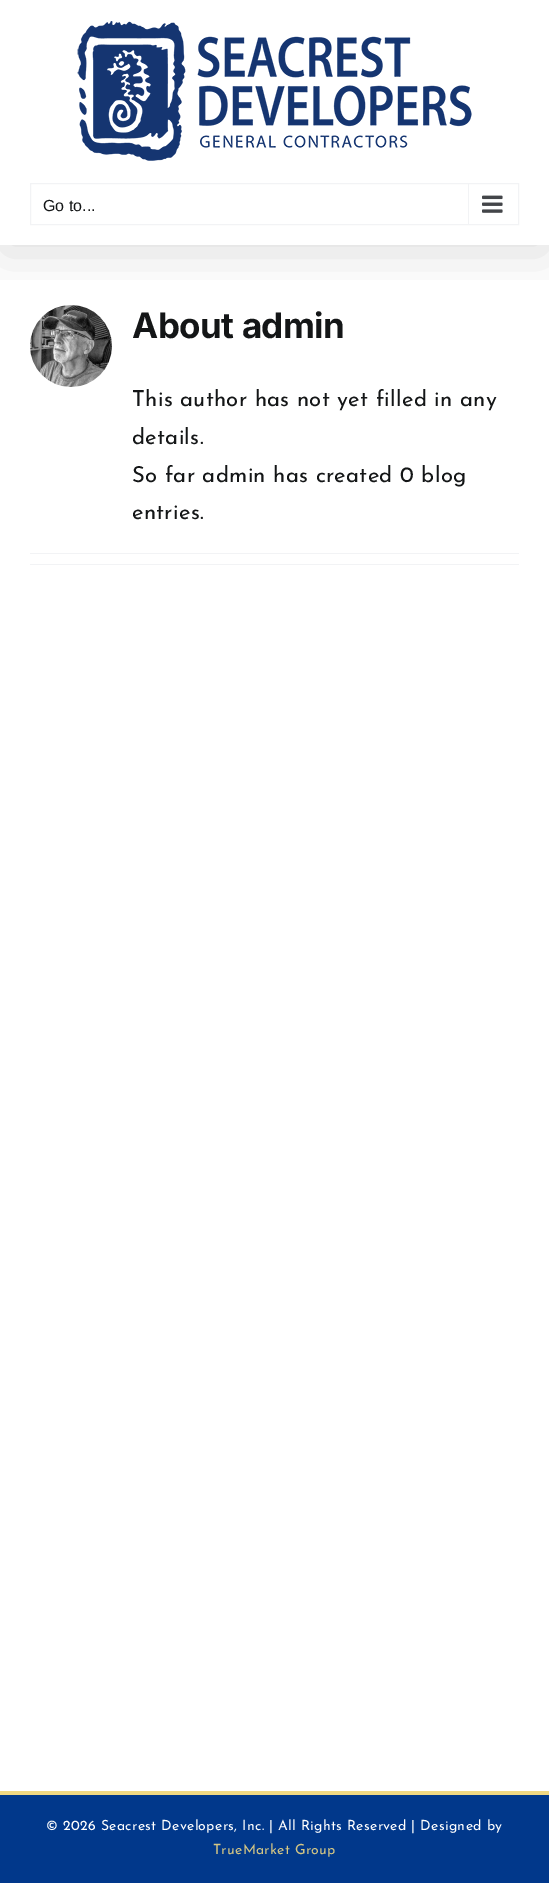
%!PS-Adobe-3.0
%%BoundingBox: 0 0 549 1883
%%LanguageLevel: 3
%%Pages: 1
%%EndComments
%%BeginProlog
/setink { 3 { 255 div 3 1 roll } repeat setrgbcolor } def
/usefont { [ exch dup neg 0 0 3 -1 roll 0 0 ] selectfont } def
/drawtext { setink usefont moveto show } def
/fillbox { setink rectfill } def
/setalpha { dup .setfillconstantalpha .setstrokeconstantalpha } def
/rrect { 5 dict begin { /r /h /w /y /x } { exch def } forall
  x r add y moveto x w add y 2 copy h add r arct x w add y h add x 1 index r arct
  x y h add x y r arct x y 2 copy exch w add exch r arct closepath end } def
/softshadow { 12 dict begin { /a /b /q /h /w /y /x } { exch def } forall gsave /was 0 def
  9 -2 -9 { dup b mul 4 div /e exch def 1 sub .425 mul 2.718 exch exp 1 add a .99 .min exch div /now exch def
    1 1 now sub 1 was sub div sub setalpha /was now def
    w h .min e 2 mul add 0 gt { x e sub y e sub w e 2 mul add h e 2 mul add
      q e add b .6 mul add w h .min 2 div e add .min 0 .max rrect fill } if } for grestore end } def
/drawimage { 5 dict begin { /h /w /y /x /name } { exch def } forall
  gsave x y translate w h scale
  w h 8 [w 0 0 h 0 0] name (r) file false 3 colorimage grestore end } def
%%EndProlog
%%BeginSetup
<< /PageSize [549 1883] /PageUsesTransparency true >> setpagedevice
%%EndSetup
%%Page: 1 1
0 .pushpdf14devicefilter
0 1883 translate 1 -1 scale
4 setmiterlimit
0 0 549 1883 255 255 255 fillbox
(assets/img3.rgb) 30 305 82 82 drawimage
gsave
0 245 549 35 rectclip
0 0 0 setink
2 12 545 241 0 25 0.14 softshadow
grestore
(assets/img1.rgb) 77 21 395 140 drawimage
242 243 245 setink
30.5 183.5 488 41 rectstroke
(Go to...) 43 211 /LiberationSans-Regular 16 20 22 23 drawtext
468 184 1 40 242 243 245 fillbox
(assets/img2.rgb) 482 195 21 18 drawimage
/Inter-Bold 35 usefont
20 22 23 setink
132 338 moveto -0.5 0 (About admin) ashow
/JosefinSans-Regular 22 usefont
132 406 moveto 0.33 0 (This author has not yet filled in any) ashow
132 444 moveto 0.33 0 (details.) ashow
132 482 moveto 0.33 0 (So far admin has created 0 blog) ashow
132 519 moveto 0.33 0 (entries.) ashow
30 553 489 1 242 243 245 fillbox
30 564 489 1 242 243 245 fillbox
0 1795 549 88 1 56 139 fillbox
0 1791 549 4 241 217 131 fillbox
/JosefinSans-Regular 14 usefont
255 255 255 setink
46 1830 moveto 0.33 0 (© 2026 Seacrest Developers, Inc. | All Rights Reserved | Designed by) ashow
212 198 132 setink
213 1854 moveto 0.33 0 (TrueMarket Group) ashow
.poppdf14devicefilter showpage
%%EOF
